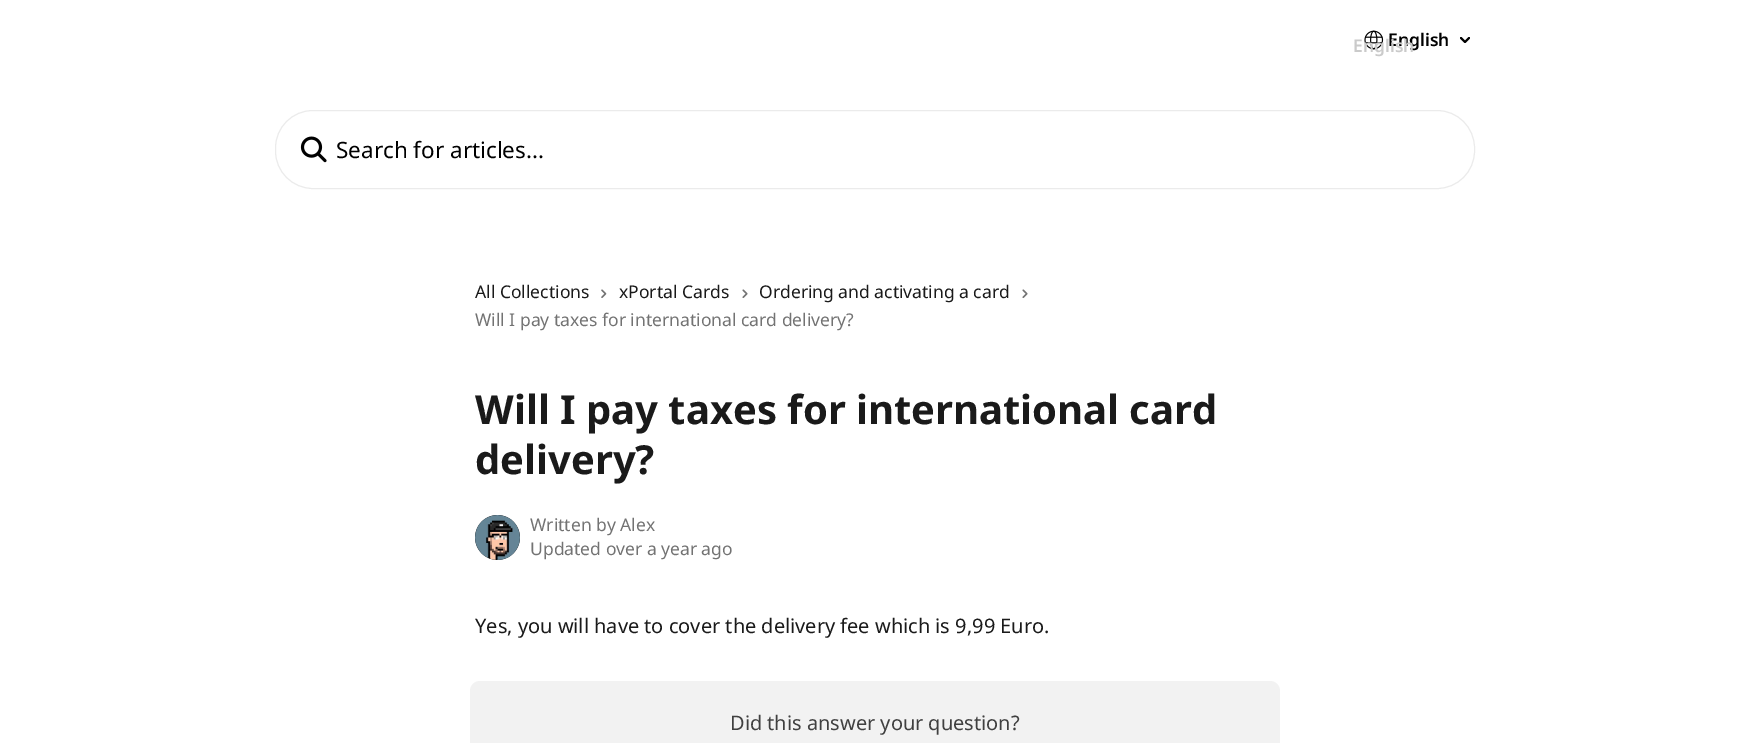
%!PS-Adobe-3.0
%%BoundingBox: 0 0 1749 743
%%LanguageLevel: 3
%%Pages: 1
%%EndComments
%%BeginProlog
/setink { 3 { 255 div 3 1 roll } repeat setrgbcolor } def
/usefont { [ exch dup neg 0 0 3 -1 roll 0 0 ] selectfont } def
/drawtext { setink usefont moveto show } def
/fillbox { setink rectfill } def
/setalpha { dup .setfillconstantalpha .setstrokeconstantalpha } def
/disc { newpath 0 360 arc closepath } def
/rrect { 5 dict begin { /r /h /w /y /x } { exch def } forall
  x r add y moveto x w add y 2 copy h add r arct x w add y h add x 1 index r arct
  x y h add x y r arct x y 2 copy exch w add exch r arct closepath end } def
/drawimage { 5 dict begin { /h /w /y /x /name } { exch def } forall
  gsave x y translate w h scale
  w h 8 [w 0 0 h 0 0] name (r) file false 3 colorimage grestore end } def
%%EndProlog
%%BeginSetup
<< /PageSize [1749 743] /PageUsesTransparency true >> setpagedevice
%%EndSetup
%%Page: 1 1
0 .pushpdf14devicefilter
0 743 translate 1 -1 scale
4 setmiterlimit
0 0 1749 743 255 255 255 fillbox
(assets/img1.rgb) 1364 30 20 20 drawimage
(English) 1388 46 /NotoSans-SemiBold 17.5 0 0 0 drawtext
(English) 1353 52 /NotoSans-SemiBold 17.5 202 202 202 drawtext
0 0 0 setink
1.9 setlinewidth
1 setlinecap
1 setlinejoin
1461 38 moveto 1465 42 lineto 1469 38 lineto stroke
0.08 setalpha
1 setlinewidth
0 setlinecap
0 setlinejoin
275.5 110.5 1199 78 37.5 rrect stroke
1 setalpha
(assets/img2.rgb) 300 136 27 27 drawimage
(Search for articles...) 336 158 /NotoSans-Regular 22.5 0 0 0 drawtext
(All Collections) 475 298 /NotoSans-Regular 17.5 26 26 26 drawtext
(assets/img3.rgb) 601 289 6 9 drawimage
(xPortal Cards) 619 298 /NotoSans-Regular 17.5 26 26 26 drawtext
(assets/img4.rgb) 742 289 6 9 drawimage
(Ordering and activating a card) 759 298 /NotoSans-Regular 17.5 26 26 26 drawtext
(assets/img4.rgb) 1022 289 6 9 drawimage
(Will I pay taxes for international card delivery?) 475 326 /NotoSans-Regular 17.5 115 115 115 drawtext
(Will I pay taxes for international card) 475 424 /NotoSans-Bold 40 26 26 26 drawtext
(delivery?) 475 474 /NotoSans-Bold 40 26 26 26 drawtext
0 0 0 setink
497.5 537.5 22.5 disc fill
(assets/img5.rgb) 475 515 45 45 drawimage
(Written by Alex) 530 531 /NotoSans-Regular 17.5 115 115 115 drawtext
(Updated over a year ago) 530 555 /NotoSans-Regular 17.5 115 115 115 drawtext
(Yes, you will have to cover the delivery fee which is 9,99 Euro.) 475 633 /NotoSans-Regular 20 26 26 26 drawtext
242 242 242 setink
470 681 810 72 10 rrect fill
(Did this answer your question?) 730 730 /NotoSans-Regular 20 64 64 64 drawtext
.poppdf14devicefilter showpage
%%EOF
